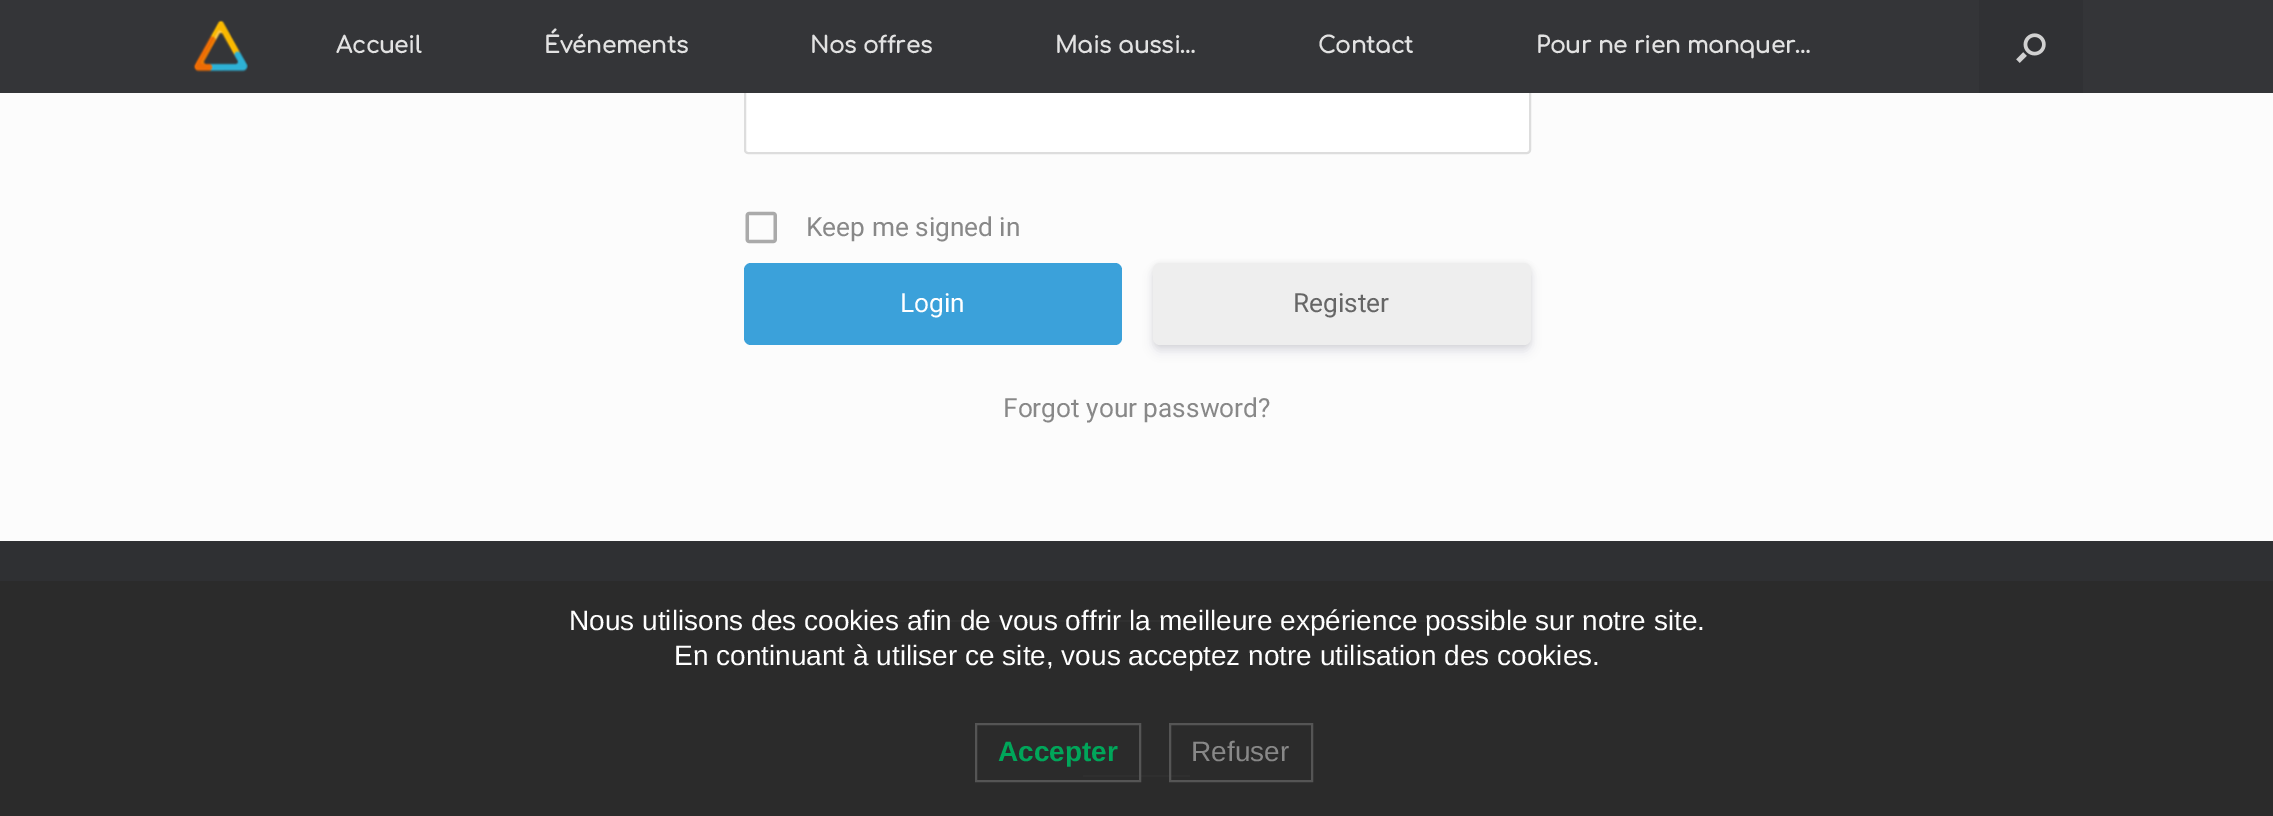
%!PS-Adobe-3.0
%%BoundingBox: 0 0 2273 816
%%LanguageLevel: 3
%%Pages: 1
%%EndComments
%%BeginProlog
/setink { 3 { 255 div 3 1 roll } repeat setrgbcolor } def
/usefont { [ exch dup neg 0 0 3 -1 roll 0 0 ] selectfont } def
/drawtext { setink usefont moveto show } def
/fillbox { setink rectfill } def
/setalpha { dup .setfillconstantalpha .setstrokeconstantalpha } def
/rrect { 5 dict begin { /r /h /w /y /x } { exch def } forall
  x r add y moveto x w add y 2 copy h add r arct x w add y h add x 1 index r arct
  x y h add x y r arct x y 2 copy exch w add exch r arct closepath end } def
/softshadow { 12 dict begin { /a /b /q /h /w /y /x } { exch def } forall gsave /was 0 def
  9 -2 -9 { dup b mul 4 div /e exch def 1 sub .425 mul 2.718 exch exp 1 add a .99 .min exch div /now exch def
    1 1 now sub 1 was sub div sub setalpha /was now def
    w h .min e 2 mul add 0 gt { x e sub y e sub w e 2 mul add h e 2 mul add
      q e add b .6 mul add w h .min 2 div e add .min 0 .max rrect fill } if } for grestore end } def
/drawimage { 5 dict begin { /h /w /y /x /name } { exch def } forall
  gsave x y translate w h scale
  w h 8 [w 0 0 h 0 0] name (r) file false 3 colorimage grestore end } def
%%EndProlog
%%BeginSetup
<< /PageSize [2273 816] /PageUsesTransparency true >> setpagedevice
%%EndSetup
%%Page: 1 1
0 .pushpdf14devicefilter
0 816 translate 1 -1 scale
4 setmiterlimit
0 0 2273 816 47 48 51 fillbox
0 581 2273 235 43 43 43 fillbox
0 93 2273 448 252 252 252 fillbox
255 255 255 setink
745 85 785 68 3 rrect gsave fill grestore
221 221 221 setink
2 setlinewidth
stroke
0 0 2273 93 52 53 56 fillbox
(assets/img1.rgb) 193 20 55 53 drawimage
(Accueil) 336 53 /Comfortaa-Bold 22.75 226 226 226 drawtext
(Événements) 544 53 /Comfortaa-Bold 22.75 226 226 226 drawtext
(Nos offres) 810 53 /Comfortaa-Bold 22.75 226 226 226 drawtext
(Mais aussi…) 1055 53 /Comfortaa-Bold 22.75 226 226 226 drawtext
(Contact) 1318 53 /Comfortaa-Bold 22.75 226 226 226 drawtext
(Pour ne rien manquer…) 1536 53 /Comfortaa-Bold 22.75 226 226 226 drawtext
1979 0 104 93 48 49 52 fillbox
(assets/img2.rgb) 2016 33 30 30 drawimage
(assets/img3.rgb) 745 211 32 33 drawimage
(Keep me signed in) 806 236 /Roboto-Regular 26.25 136 136 136 drawtext
59 161 218 setink
744 263 378 82 7 rrect fill
(Login) 900 312 /Roboto-Regular 26.25 255 255 255 drawtext
0 0 0 setink
1153 264 378 83 7 2.5 0.08 softshadow
50 50 93 setink
1153 270 378 82 7 5 0.11 softshadow
238 238 238 setink
1153 263 378 82 7 rrect fill
(Register) 1293 312 /Roboto-Regular 26.25 102 102 102 drawtext
(Forgot your password?) 1003 417 /Roboto-Regular 26.25 136 136 136 drawtext
828 620 213 2 48 48 48 fillbox
1057 620 200 2 48 48 48 fillbox
1274 620 172 2 48 48 48 fillbox
1083 775 107 2 47 47 47 fillbox
(Nous utilisons des cookies afin de vous offrir la meilleure expérience possible sur notre site.) 569 630 /LiberationSans-Regular 28 255 255 255 drawtext
(En continuant à utiliser ce site, vous acceptez notre utilisation des cookies.) 674 665 /LiberationSans-Regular 28 255 255 255 drawtext
85 85 85 setink
976 724 164 57 rectstroke
(Accepter) 998 761 /LiberationSans-Bold 28 0 166 90 drawtext
85 85 85 setink
1170 724 142 57 rectstroke
(Refuser) 1191 761 /LiberationSans-Regular 28 136 136 136 drawtext
.poppdf14devicefilter showpage
%%EOF
